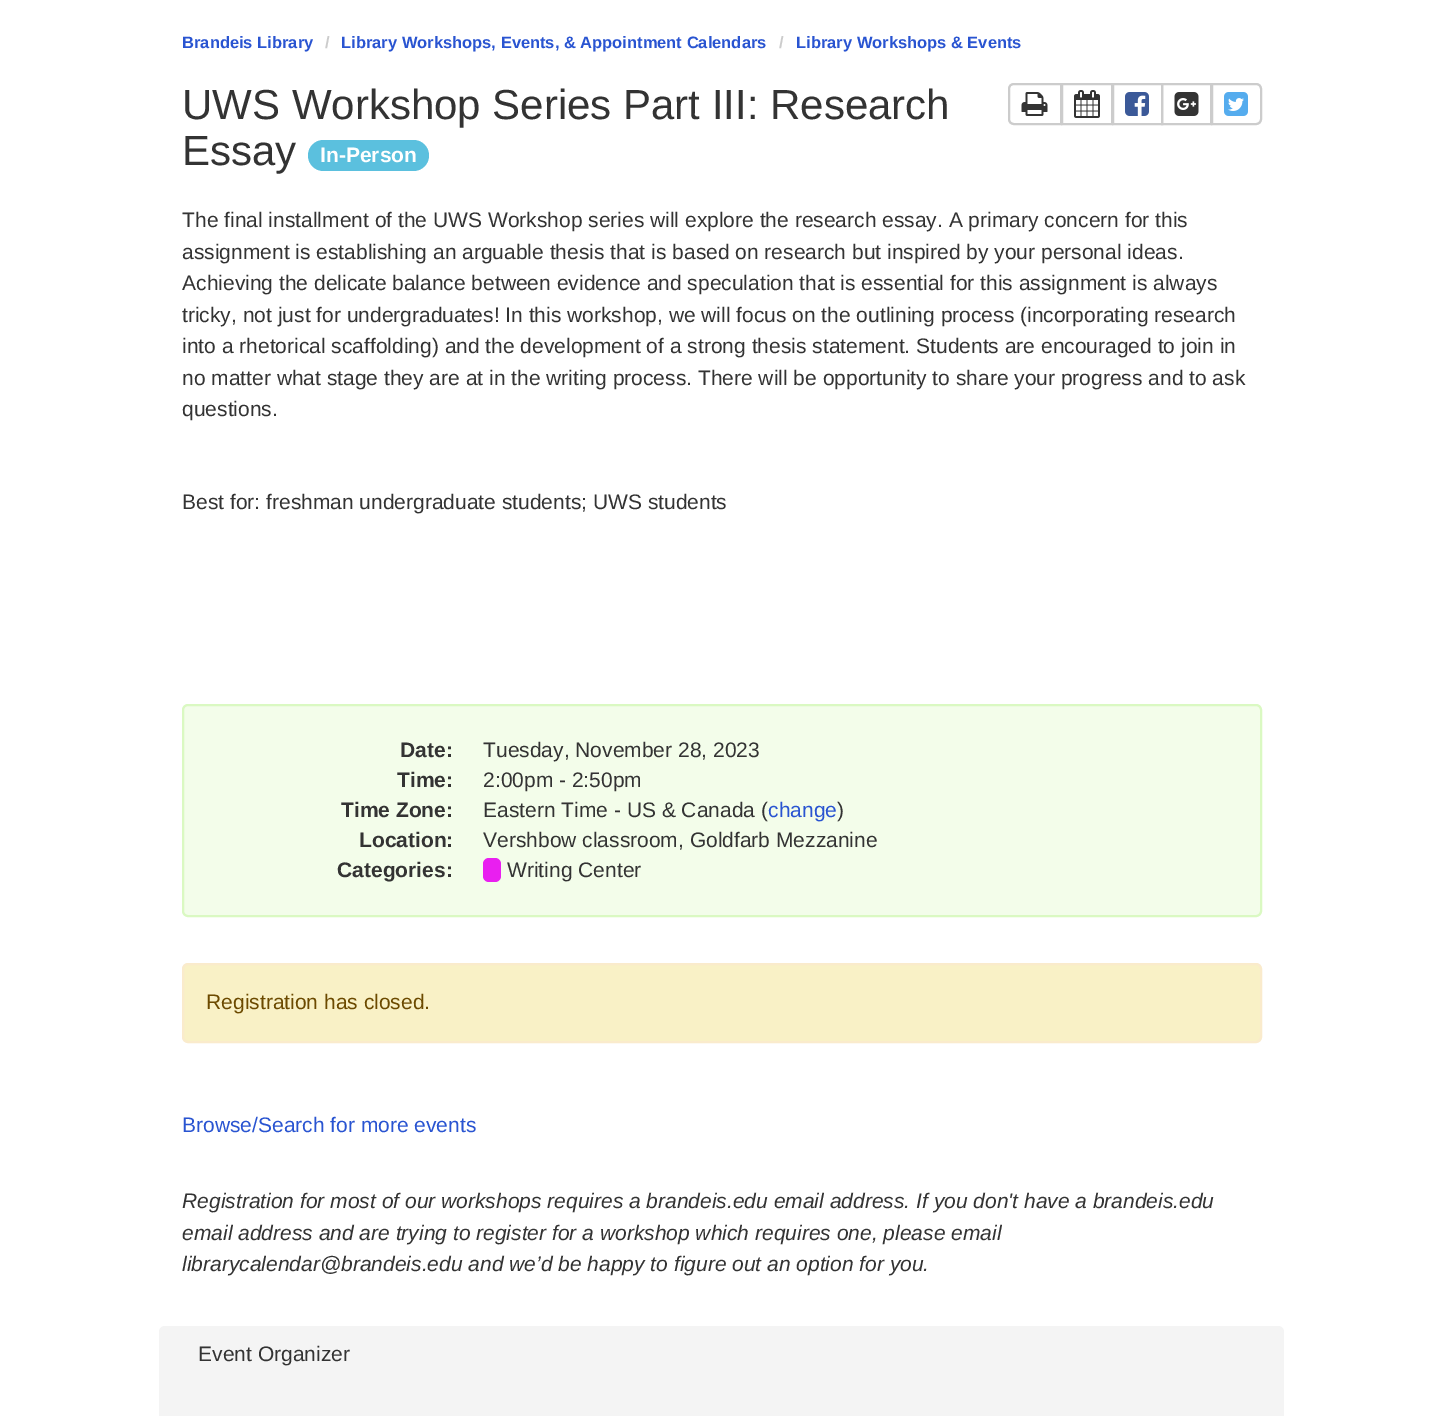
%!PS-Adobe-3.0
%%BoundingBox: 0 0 1442 1416
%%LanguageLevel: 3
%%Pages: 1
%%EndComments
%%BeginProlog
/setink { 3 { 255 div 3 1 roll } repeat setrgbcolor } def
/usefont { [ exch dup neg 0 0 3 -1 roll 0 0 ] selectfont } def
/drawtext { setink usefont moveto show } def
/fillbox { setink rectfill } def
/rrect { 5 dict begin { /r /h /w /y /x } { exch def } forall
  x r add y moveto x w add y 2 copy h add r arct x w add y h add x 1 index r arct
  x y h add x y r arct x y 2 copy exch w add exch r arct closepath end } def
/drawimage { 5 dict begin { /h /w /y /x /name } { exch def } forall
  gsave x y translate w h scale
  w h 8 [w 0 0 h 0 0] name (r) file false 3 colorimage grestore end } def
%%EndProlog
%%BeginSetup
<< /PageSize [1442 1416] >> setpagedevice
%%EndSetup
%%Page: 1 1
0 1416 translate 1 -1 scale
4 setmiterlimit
0 0 1442 1416 255 255 255 fillbox
(Brandeis Library) 182 48 /LiberationSans-Bold 16.5 41 84 209 drawtext
(/) 325 48 /LiberationSans-Bold 16.5 204 204 204 drawtext
(Library Workshops, Events, & Appointment Calendars) 341 48 /LiberationSans-Bold 16.5 41 84 209 drawtext
(/) 779 48 /LiberationSans-Bold 16.5 204 204 204 drawtext
(Library Workshops & Events) 796 48 /LiberationSans-Bold 16.5 41 84 209 drawtext
(UWS Workshop Series Part III: Research) 182 119 /LiberationSans-Regular 42 51 51 51 drawtext
(Essay) 182 165 /LiberationSans-Regular 42 51 51 51 drawtext
91 192 222 setink
308 140 121 31 15.5 rrect fill
(In-Person) 320 162 /LiberationSans-Bold 21 255 255 255 drawtext
204 204 204 setink
2 setlinewidth
1014 84 moveto 1061 84 lineto 1061 124 lineto 1014 124 lineto 1011 124 1009 122 1009 119 curveto 1009 89 lineto 1009 86 1011 84 1014 84 curveto closepath stroke
(assets/img1.rgb) 1021 92 27 24 drawimage
1062 84 50 40 rectstroke
(assets/img2.rgb) 1074 90 26 28 drawimage
1113 84 49 40 rectstroke
(assets/img3.rgb) 1125 92 24 24 drawimage
1162 84 49 40 rectstroke
(assets/img4.rgb) 1174 92 25 24 drawimage
255 255 255 setink
1212 84 moveto 1256 84 lineto 1259 84 1261 86 1261 89 curveto 1261 119 lineto 1261 122 1259 124 1256 124 curveto 1212 124 lineto closepath gsave fill grestore
204 204 204 setink
stroke
(assets/img5.rgb) 1224 92 24 24 drawimage
(The final installment of the UWS Workshop series will explore the research essay. A primary concern for this) 182 227 /LiberationSans-Regular 21 51 51 51 drawtext
(assignment is establishing an arguable thesis that is based on research but inspired by your personal ideas.) 182 259 /LiberationSans-Regular 21 51 51 51 drawtext
(Achieving the delicate balance between evidence and speculation that is essential for this assignment is always) 182 290 /LiberationSans-Regular 21 51 51 51 drawtext
(tricky, not just for undergraduates! In this workshop, we will focus on the outlining process \(incorporating research) 182 322 /LiberationSans-Regular 21 51 51 51 drawtext
(into a rhetorical scaffolding\) and the development of a strong thesis statement. Students are encouraged to join in) 182 353 /LiberationSans-Regular 21 51 51 51 drawtext
(no matter what stage they are at in the writing process. There will be opportunity to share your progress and to ask) 182 385 /LiberationSans-Regular 21 51 51 51 drawtext
(questions.) 182 416 /LiberationSans-Regular 21 51 51 51 drawtext
(Best for: freshman undergraduate students; UWS students) 182 509 /LiberationSans-Regular 21 51 51 51 drawtext
243 253 234 setink
183 705 1078 211 5 rrect gsave fill grestore
218 249 194 setink
stroke
(Date:) 400 757 /LiberationSans-Bold 21 51 51 51 drawtext
(Tuesday, November 28, 2023) 483 757 /LiberationSans-Regular 21 51 51 51 drawtext
(Time:) 397 787 /LiberationSans-Bold 21 51 51 51 drawtext
(2:00pm - 2:50pm) 483 787 /LiberationSans-Regular 21 51 51 51 drawtext
(Time Zone:) 341 817 /LiberationSans-Bold 21 51 51 51 drawtext
(Eastern Time - US & Canada \() 483 817 /LiberationSans-Regular 21 51 51 51 drawtext
(change) 768 817 /LiberationSans-Regular 21 41 84 209 drawtext
(\)) 837 817 /LiberationSans-Regular 21 51 51 51 drawtext
(Location:) 359 847 /LiberationSans-Bold 21 51 51 51 drawtext
(Vershbow classroom, Goldfarb Mezzanine) 483 847 /LiberationSans-Regular 21 51 51 51 drawtext
(Categories:) 337 877 /LiberationSans-Bold 21 51 51 51 drawtext
233 31 240 setink
483 858 18 24 6 rrect fill
(Writing Center) 507 877 /LiberationSans-Regular 21 51 51 51 drawtext
249 241 198 setink
183 964 1078 78 5 rrect gsave fill grestore
250 235 204 setink
stroke
(Registration has closed.) 206 1009 /LiberationSans-Regular 21 108 74 0 drawtext
(Browse/Search for more events) 182 1132 /LiberationSans-Regular 21 41 84 209 drawtext
(Registration for most of our workshops requires a brandeis.edu email address. If you don't have a brandeis.edu) 182 1208 /LiberationSans-Italic 21 51 51 51 drawtext
(email address and are trying to register for a workshop which requires one, please email) 182 1240 /LiberationSans-Italic 21 51 51 51 drawtext
(librarycalendar@brandeis.edu and we’d be happy to figure out an option for you.) 182 1271 /LiberationSans-Italic 21 51 51 51 drawtext
244 244 244 setink
159 1326 1125 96 6 rrect fill
(Event Organizer) 198 1361 /LiberationSans-Regular 21 51 51 51 drawtext
showpage
%%EOF
